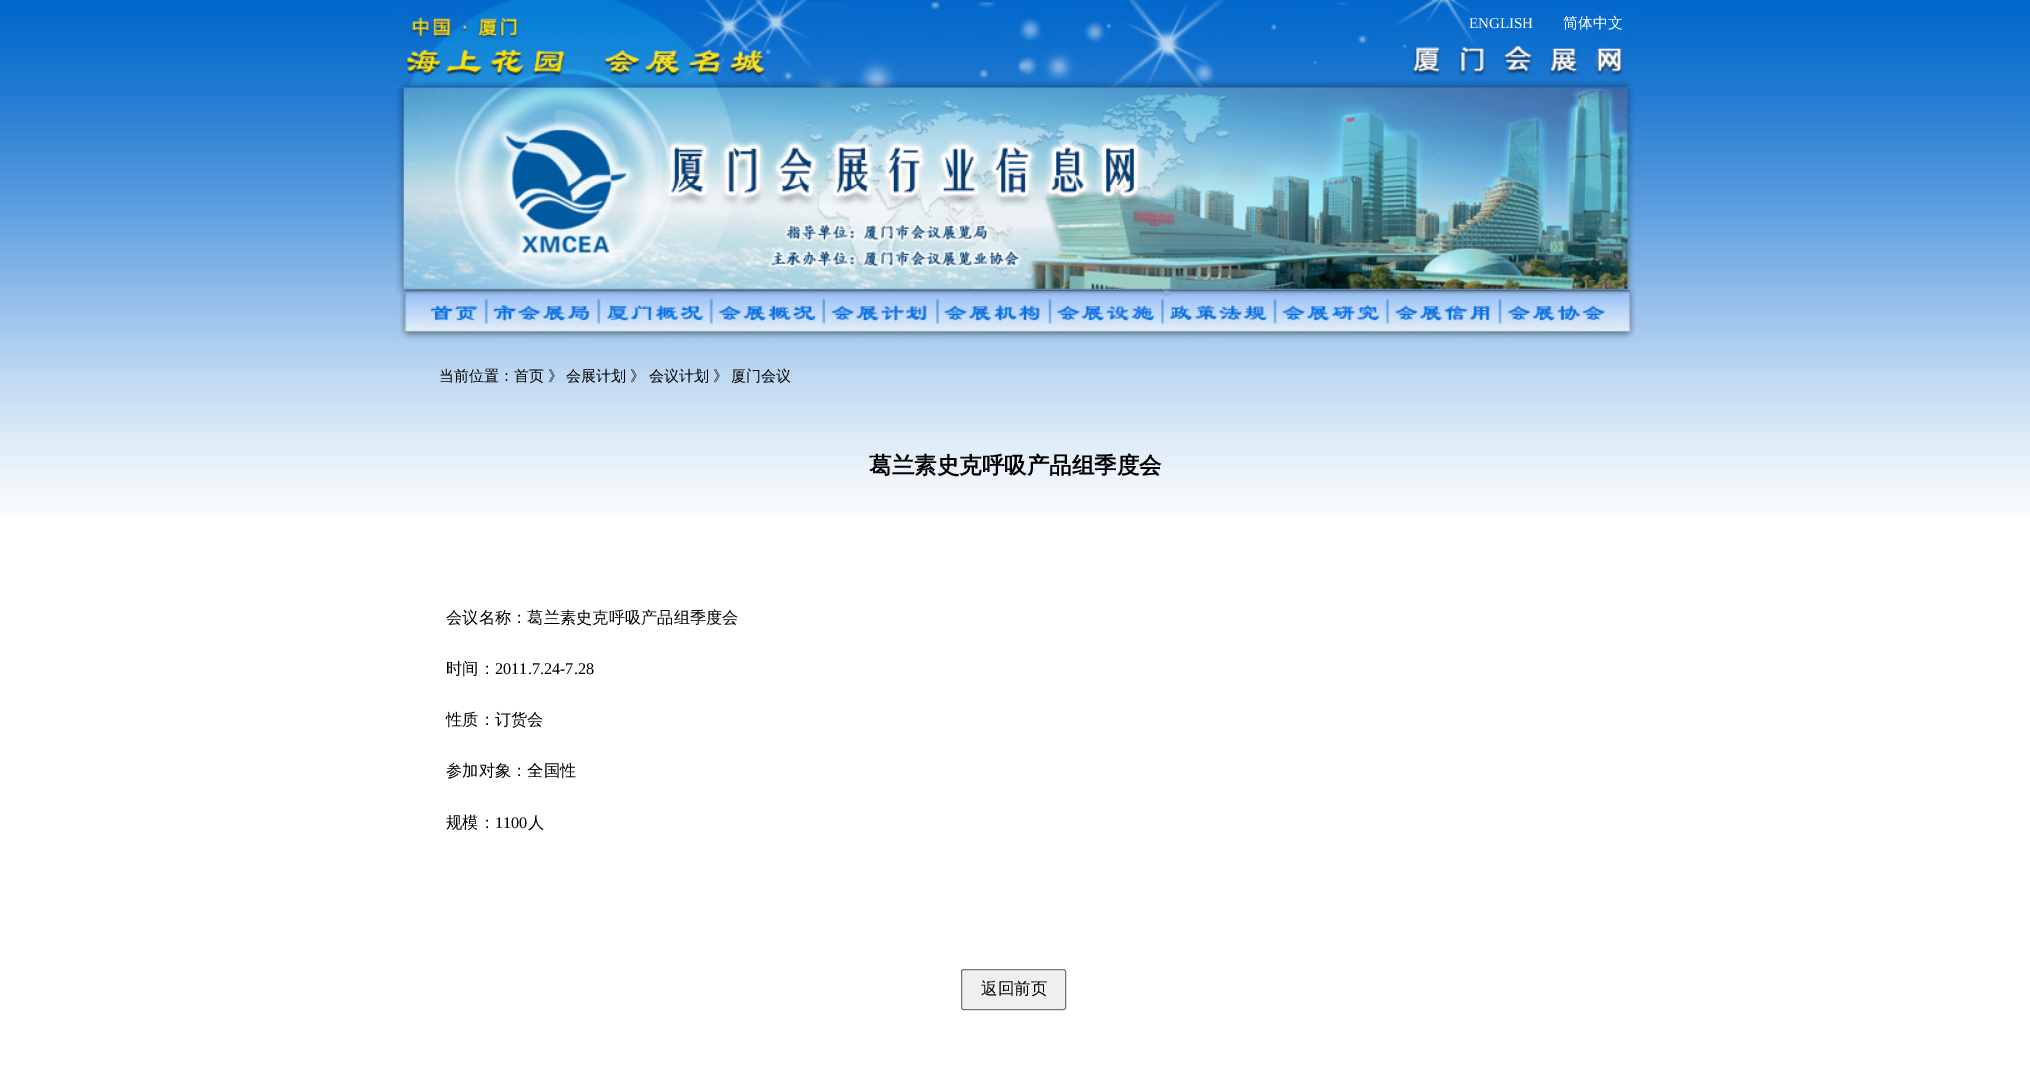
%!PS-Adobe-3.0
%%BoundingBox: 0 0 2030 1069
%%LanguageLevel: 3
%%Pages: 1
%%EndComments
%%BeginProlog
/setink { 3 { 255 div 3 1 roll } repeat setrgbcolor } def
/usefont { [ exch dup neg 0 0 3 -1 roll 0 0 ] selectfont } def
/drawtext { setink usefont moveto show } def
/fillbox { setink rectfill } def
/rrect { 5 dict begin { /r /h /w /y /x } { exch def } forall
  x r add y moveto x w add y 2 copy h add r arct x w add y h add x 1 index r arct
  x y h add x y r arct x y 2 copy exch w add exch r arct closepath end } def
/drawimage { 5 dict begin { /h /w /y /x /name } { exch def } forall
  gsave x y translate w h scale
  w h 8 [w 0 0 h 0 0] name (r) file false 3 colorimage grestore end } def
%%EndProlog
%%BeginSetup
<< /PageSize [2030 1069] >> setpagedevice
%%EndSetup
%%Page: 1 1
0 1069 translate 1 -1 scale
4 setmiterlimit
0 0 2030 1069 255 255 255 fillbox
(assets/img1.rgb) 0 0 2030 517 drawimage
(assets/img2.rgb) 398 0 1236 88 drawimage
(ENGLISH) 1469 28 /LiberationSerif-Regular 15 255 255 255 drawtext
(简体中文) 1563 28 /WenQuanYiZenHei-Medium 15 255 255 255 drawtext
(assets/img5.rgb) 398 291 1238 49 drawimage
(assets/img3.rgb) 395 87 1241 205 drawimage
(assets/img4.rgb) 396 87 1240 205 drawimage
(当前位置：首页) 439 381 /WenQuanYiZenHei-Medium 15 0 0 0 drawtext
(》) 548 381 /WenQuanYiZenHei-Medium 15 0 0 0 drawtext
(会展计划) 566 381 /WenQuanYiZenHei-Medium 15 0 0 0 drawtext
(》) 630 381 /WenQuanYiZenHei-Medium 15 0 0 0 drawtext
(会议计划) 649 381 /WenQuanYiZenHei-Medium 15 0 0 0 drawtext
(》) 713 381 /WenQuanYiZenHei-Medium 15 0 0 0 drawtext
(厦门会议) 731 381 /WenQuanYiZenHei-Medium 15 0 0 0 drawtext
(葛兰素史克呼吸产品组季度会) 869 473 /WenQuanYiZenHei-Bold 22.5 0 0 0 drawtext
(会议名称：葛兰素史克呼吸产品组季度会) 446 623 /WenQuanYiZenHei-Medium 16.25 0 0 0 drawtext
(时间：) 446 674 /WenQuanYiZenHei-Medium 16.25 0 0 0 drawtext
(2011.7.24-7.28) 495 674 /LiberationSerif-Regular 16.25 0 0 0 drawtext
(性质：订货会) 446 725 /WenQuanYiZenHei-Medium 16.25 0 0 0 drawtext
(参加对象：全国性) 446 776 /WenQuanYiZenHei-Medium 16.25 0 0 0 drawtext
(规模：) 446 828 /WenQuanYiZenHei-Medium 16.25 0 0 0 drawtext
(1100) 495 828 /LiberationSerif-Regular 16.25 0 0 0 drawtext
(人) 528 828 /WenQuanYiZenHei-Medium 16.25 0 0 0 drawtext
239 239 239 setink
961.5 969.5 104 40 2 rrect gsave fill grestore
118 118 118 setink
stroke
(返回前页) 981 994 /WenQuanYiZenHei-Medium 16.5 0 0 0 drawtext
showpage
%%EOF
